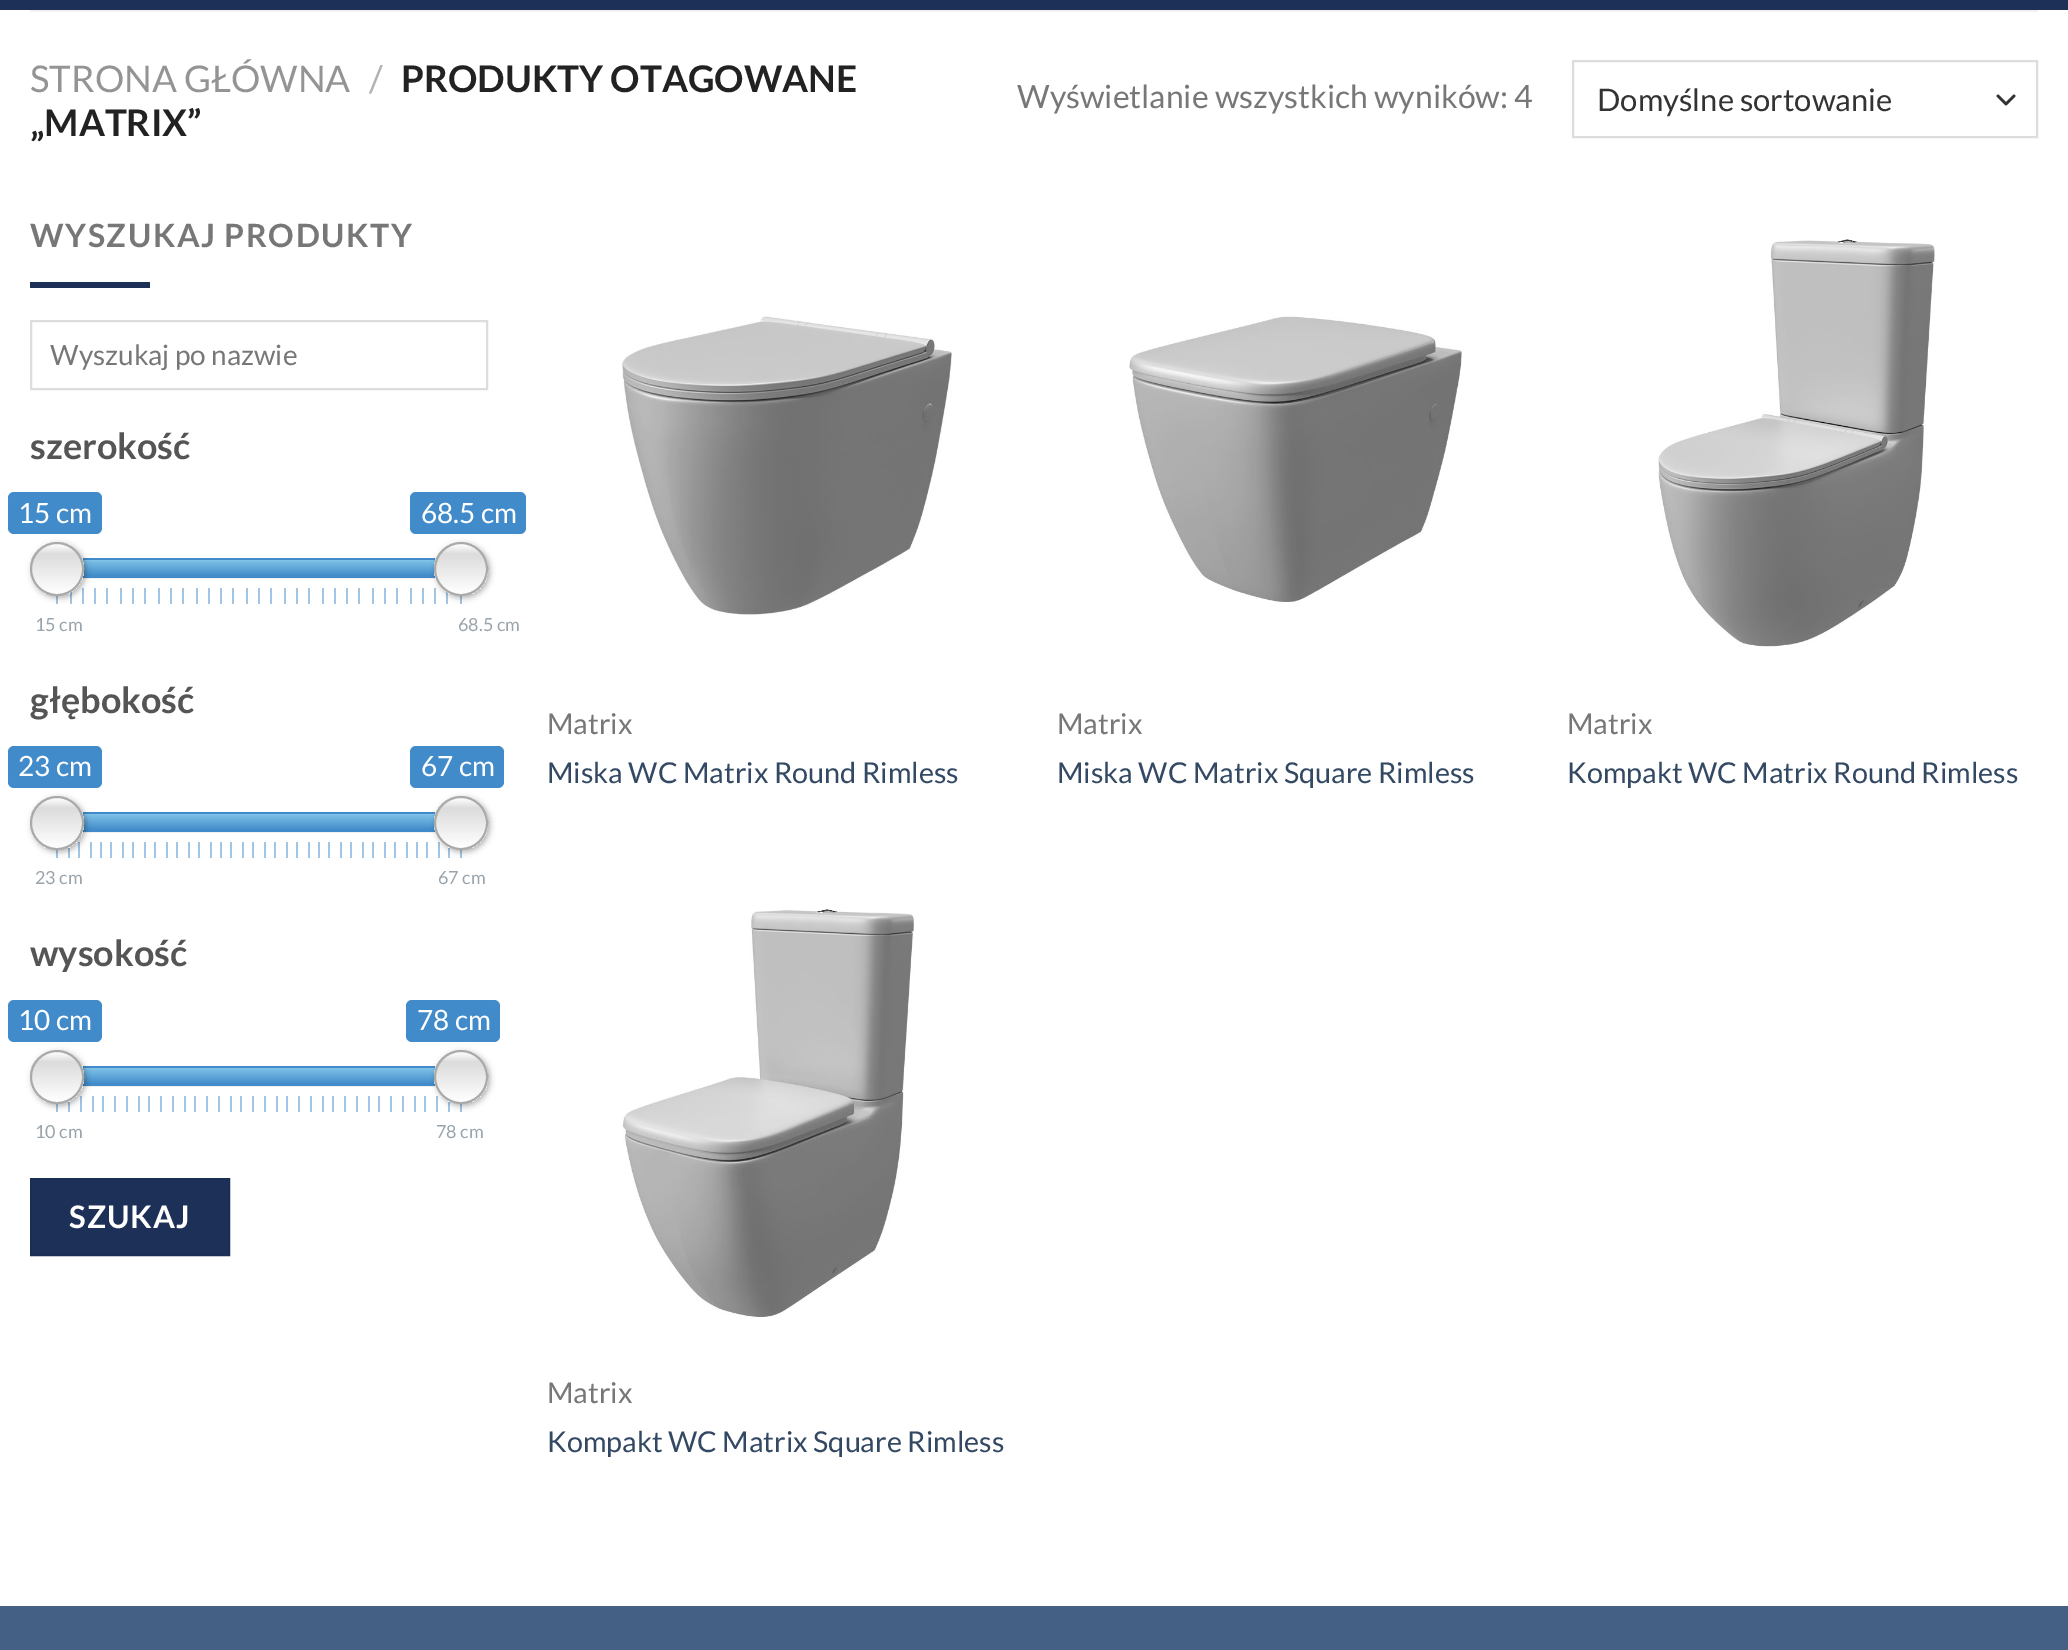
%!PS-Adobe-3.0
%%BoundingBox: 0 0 2068 1650
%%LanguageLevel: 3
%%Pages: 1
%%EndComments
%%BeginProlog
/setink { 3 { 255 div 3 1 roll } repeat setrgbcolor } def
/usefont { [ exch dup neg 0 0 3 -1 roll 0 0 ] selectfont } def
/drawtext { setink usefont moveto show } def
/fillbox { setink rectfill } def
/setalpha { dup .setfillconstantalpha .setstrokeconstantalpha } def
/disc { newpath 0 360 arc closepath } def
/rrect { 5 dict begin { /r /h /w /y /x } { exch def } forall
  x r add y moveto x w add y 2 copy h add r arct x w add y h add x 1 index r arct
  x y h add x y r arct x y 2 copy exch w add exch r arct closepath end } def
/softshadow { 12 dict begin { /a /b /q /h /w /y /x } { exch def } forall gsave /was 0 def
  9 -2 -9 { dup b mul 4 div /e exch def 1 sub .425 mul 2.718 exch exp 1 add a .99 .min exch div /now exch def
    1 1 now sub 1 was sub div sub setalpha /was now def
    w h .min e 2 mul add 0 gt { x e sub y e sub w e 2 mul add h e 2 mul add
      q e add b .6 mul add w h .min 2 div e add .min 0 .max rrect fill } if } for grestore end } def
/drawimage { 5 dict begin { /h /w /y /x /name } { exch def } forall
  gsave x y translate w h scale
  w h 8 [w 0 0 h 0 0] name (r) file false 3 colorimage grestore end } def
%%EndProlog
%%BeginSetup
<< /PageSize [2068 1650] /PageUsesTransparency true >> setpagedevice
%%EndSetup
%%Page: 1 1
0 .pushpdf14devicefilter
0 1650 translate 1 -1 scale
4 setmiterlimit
0 0 2068 1650 255 255 255 fillbox
0 0 2068 10 28 48 88 fillbox
30 10 2008 2 241 241 241 fillbox
(STRONA GŁÓWNA) 30 92 /Lato-Regular 36.75 148 148 148 drawtext
(/) 369 92 /Lato-Regular 36.75 178 178 178 drawtext
(PRODUKTY OTAGOWANE) 401 92 /Lato-Bold 36.75 34 34 34 drawtext
(„MATRIX”) 30 136 /Lato-Bold 36.75 34 34 34 drawtext
(Wyświetlanie wszystkich wyników: 4) 1017 108 /Lato-Regular 32 119 119 119 drawtext
51 51 51 setink
2.7 setlinewidth
1 setlinecap
1 setlinejoin
1998 96 moveto 2006 104 lineto 2014 96 lineto stroke
221 221 221 setink
2 setlinewidth
0 setlinecap
0 setlinejoin
1573 61 464 76 rectstroke
(Domyślne sortowanie) 1597 111 /Lato-Regular 31 51 51 51 drawtext
/Lato-Bold 32 usefont
119 119 119 setink
30 247 moveto 1.6 0 (WYSZUKAJ PRODUKTY) ashow
30 282 120 6 28 48 88 fillbox
221 221 221 setink
31 321 456 68 rectstroke
(Wyszukaj po nazwie) 50 365 /Lato-Regular 28 119 119 119 drawtext
(szerokość) 30 459 /Lato-Bold 36 85 85 85 drawtext
66 139 202 setink
8 492 94 42 6 rrect fill
(15 cm) 18 523 /Lato-Regular 28 255 255 255 drawtext
66 139 202 setink
410 492 116 42 6 rrect fill
(68.5 cm) 421 523 /Lato-Regular 28 255 255 255 drawtext
204 204 204 setink
31 559 456 18 9 rrect stroke
gsave 82 560 moveto 436 560 lineto 436 576 lineto 82 576 lineto closepath clip newpath
<< /ShadingType 2 /ColorSpace /DeviceRGB /Coords [259 576 259 560] /Extend [true true] /Function << /FunctionType 2 /Domain [0 1] /C0 [0.259 0.545 0.792] /C1 [0.498 0.765 0.91] /N 1 >> >> shfill grestore
81 558 356 2 66 139 202 fillbox
82 576 354 2 66 139 202 fillbox
56 588 2 16 161 197 229 fillbox
70 588 2 16 161 197 229 fillbox
82 588 2 16 161 197 229 fillbox
94 588 2 16 161 197 229 fillbox
0 0 0 setink
32 544 54 54 27 3 0.3 softshadow
gsave
30 542 54 54 27 rrect clip newpath
gsave 30 544 moveto 84 544 lineto 84 594 lineto 30 594 lineto closepath clip newpath
<< /ShadingType 2 /ColorSpace /DeviceRGB /Coords [57 544 57 594] /Extend [true true] /Function << /FunctionType 3 /Domain [0 1] /Functions [<< /FunctionType 2 /Domain [0 1] /C0 [1 1 1] /C1 [0.863 0.863 0.863] /N 1 >> << /FunctionType 2 /Domain [0 1] /C0 [0.863 0.863 0.863] /C1 [1 1 1] /N 1 >>] /Bounds [0.2] /Encode [0 1 0 1] >> >> shfill grestore
grestore
170 170 170 setink
57 569 26 disc stroke
434 588 2 16 161 197 229 fillbox
446 588 2 16 161 197 229 fillbox
460 588 2 16 161 197 229 fillbox
0 0 0 setink
436 544 54 54 27 3 0.3 softshadow
gsave
434 542 54 54 27 rrect clip newpath
gsave 434 544 moveto 488 544 lineto 488 594 lineto 434 594 lineto closepath clip newpath
<< /ShadingType 2 /ColorSpace /DeviceRGB /Coords [461 544 461 594] /Extend [true true] /Function << /FunctionType 3 /Domain [0 1] /Functions [<< /FunctionType 2 /Domain [0 1] /C0 [1 1 1] /C1 [0.863 0.863 0.863] /N 1 >> << /FunctionType 2 /Domain [0 1] /C0 [0.863 0.863 0.863] /C1 [1 1 1] /N 1 >>] /Bounds [0.2] /Encode [0 1 0 1] >> >> shfill grestore
grestore
170 170 170 setink
461 569 26 disc stroke
106 588 2 16 161 197 229 fillbox
120 588 2 16 161 197 229 fillbox
132 588 2 16 161 197 229 fillbox
144 588 2 16 161 197 229 fillbox
158 588 2 16 161 197 229 fillbox
170 588 2 16 161 197 229 fillbox
182 588 2 16 161 197 229 fillbox
196 588 2 16 161 197 229 fillbox
208 588 2 16 161 197 229 fillbox
220 588 2 16 161 197 229 fillbox
232 588 2 16 161 197 229 fillbox
246 588 2 16 161 197 229 fillbox
258 588 2 16 161 197 229 fillbox
270 588 2 16 161 197 229 fillbox
284 588 2 16 161 197 229 fillbox
296 588 2 16 161 197 229 fillbox
308 588 2 16 161 197 229 fillbox
322 588 2 16 161 197 229 fillbox
334 588 2 16 161 197 229 fillbox
346 588 2 16 161 197 229 fillbox
358 588 2 16 161 197 229 fillbox
372 588 2 16 161 197 229 fillbox
384 588 2 16 161 197 229 fillbox
396 588 2 16 161 197 229 fillbox
410 588 2 16 161 197 229 fillbox
422 588 2 16 161 197 229 fillbox
(15 cm) 35 631 /Lato-Regular 18 153 164 172 drawtext
(68.5 cm) 458 631 /Lato-Regular 18 153 164 172 drawtext
(głębokość) 30 713 /Lato-Bold 36 85 85 85 drawtext
66 139 202 setink
8 746 94 42 6 rrect fill
(23 cm) 18 776 /Lato-Regular 28 255 255 255 drawtext
66 139 202 setink
410 746 94 42 6 rrect fill
(67 cm) 421 776 /Lato-Regular 28 255 255 255 drawtext
204 204 204 setink
31 813 456 18 9 rrect stroke
gsave 82 814 moveto 436 814 lineto 436 830 lineto 82 830 lineto closepath clip newpath
<< /ShadingType 2 /ColorSpace /DeviceRGB /Coords [259 830 259 814] /Extend [true true] /Function << /FunctionType 2 /Domain [0 1] /C0 [0.259 0.545 0.792] /C1 [0.498 0.765 0.91] /N 1 >> >> shfill grestore
81 812 356 2 66 139 202 fillbox
82 830 354 2 66 139 202 fillbox
56 842 2 16 161 197 229 fillbox
68 842 2 16 161 197 229 fillbox
78 842 2 16 161 197 229 fillbox
90 842 2 16 161 197 229 fillbox
0 0 0 setink
32 798 54 54 27 3 0.3 softshadow
gsave
30 796 54 54 27 rrect clip newpath
gsave 30 798 moveto 84 798 lineto 84 848 lineto 30 848 lineto closepath clip newpath
<< /ShadingType 2 /ColorSpace /DeviceRGB /Coords [57 798 57 848] /Extend [true true] /Function << /FunctionType 3 /Domain [0 1] /Functions [<< /FunctionType 2 /Domain [0 1] /C0 [1 1 1] /C1 [0.863 0.863 0.863] /N 1 >> << /FunctionType 2 /Domain [0 1] /C0 [0.863 0.863 0.863] /C1 [1 1 1] /N 1 >>] /Bounds [0.2] /Encode [0 1 0 1] >> >> shfill grestore
grestore
170 170 170 setink
57 823 26 disc stroke
426 842 2 16 161 197 229 fillbox
438 842 2 16 161 197 229 fillbox
448 842 2 16 161 197 229 fillbox
460 842 2 16 161 197 229 fillbox
0 0 0 setink
436 798 54 54 27 3 0.3 softshadow
gsave
434 796 54 54 27 rrect clip newpath
gsave 434 798 moveto 488 798 lineto 488 848 lineto 434 848 lineto closepath clip newpath
<< /ShadingType 2 /ColorSpace /DeviceRGB /Coords [461 798 461 848] /Extend [true true] /Function << /FunctionType 3 /Domain [0 1] /Functions [<< /FunctionType 2 /Domain [0 1] /C0 [1 1 1] /C1 [0.863 0.863 0.863] /N 1 >> << /FunctionType 2 /Domain [0 1] /C0 [0.863 0.863 0.863] /C1 [1 1 1] /N 1 >>] /Bounds [0.2] /Encode [0 1 0 1] >> >> shfill grestore
grestore
170 170 170 setink
461 823 26 disc stroke
100 842 2 16 161 197 229 fillbox
110 842 2 16 161 197 229 fillbox
122 842 2 16 161 197 229 fillbox
132 842 2 16 161 197 229 fillbox
144 842 2 16 161 197 229 fillbox
154 842 2 16 161 197 229 fillbox
166 842 2 16 161 197 229 fillbox
176 842 2 16 161 197 229 fillbox
188 842 2 16 161 197 229 fillbox
198 842 2 16 161 197 229 fillbox
210 842 2 16 161 197 229 fillbox
220 842 2 16 161 197 229 fillbox
230 842 2 16 161 197 229 fillbox
242 842 2 16 161 197 229 fillbox
252 842 2 16 161 197 229 fillbox
264 842 2 16 161 197 229 fillbox
274 842 2 16 161 197 229 fillbox
286 842 2 16 161 197 229 fillbox
296 842 2 16 161 197 229 fillbox
308 842 2 16 161 197 229 fillbox
318 842 2 16 161 197 229 fillbox
328 842 2 16 161 197 229 fillbox
340 842 2 16 161 197 229 fillbox
350 842 2 16 161 197 229 fillbox
362 842 2 16 161 197 229 fillbox
372 842 2 16 161 197 229 fillbox
384 842 2 16 161 197 229 fillbox
394 842 2 16 161 197 229 fillbox
406 842 2 16 161 197 229 fillbox
416 842 2 16 161 197 229 fillbox
(23 cm) 35 884 /Lato-Regular 18 153 164 172 drawtext
(67 cm) 438 884 /Lato-Regular 18 153 164 172 drawtext
(wysokość) 30 966 /Lato-Bold 36 85 85 85 drawtext
66 139 202 setink
8 1000 94 42 6 rrect fill
(10 cm) 18 1030 /Lato-Regular 28 255 255 255 drawtext
66 139 202 setink
406 1000 94 42 6 rrect fill
(78 cm) 417 1030 /Lato-Regular 28 255 255 255 drawtext
204 204 204 setink
31 1067 456 18 9 rrect stroke
gsave 82 1068 moveto 436 1068 lineto 436 1084 lineto 82 1084 lineto closepath clip newpath
<< /ShadingType 2 /ColorSpace /DeviceRGB /Coords [259 1084 259 1068] /Extend [true true] /Function << /FunctionType 2 /Domain [0 1] /C0 [0.259 0.545 0.792] /C1 [0.498 0.765 0.91] /N 1 >> >> shfill grestore
81 1066 356 2 66 139 202 fillbox
82 1084 354 2 66 139 202 fillbox
56 1096 2 16 161 197 229 fillbox
68 1096 2 16 161 197 229 fillbox
80 1096 2 16 161 197 229 fillbox
92 1096 2 16 161 197 229 fillbox
0 0 0 setink
32 1052 54 54 27 3 0.3 softshadow
gsave
30 1050 54 54 27 rrect clip newpath
gsave 30 1052 moveto 84 1052 lineto 84 1102 lineto 30 1102 lineto closepath clip newpath
<< /ShadingType 2 /ColorSpace /DeviceRGB /Coords [57 1052 57 1102] /Extend [true true] /Function << /FunctionType 3 /Domain [0 1] /Functions [<< /FunctionType 2 /Domain [0 1] /C0 [1 1 1] /C1 [0.863 0.863 0.863] /N 1 >> << /FunctionType 2 /Domain [0 1] /C0 [0.863 0.863 0.863] /C1 [1 1 1] /N 1 >>] /Bounds [0.2] /Encode [0 1 0 1] >> >> shfill grestore
grestore
170 170 170 setink
57 1077 26 disc stroke
436 1096 2 16 161 197 229 fillbox
448 1096 2 16 161 197 229 fillbox
460 1096 2 16 161 197 229 fillbox
0 0 0 setink
436 1052 54 54 27 3 0.3 softshadow
gsave
434 1050 54 54 27 rrect clip newpath
gsave 434 1052 moveto 488 1052 lineto 488 1102 lineto 434 1102 lineto closepath clip newpath
<< /ShadingType 2 /ColorSpace /DeviceRGB /Coords [461 1052 461 1102] /Extend [true true] /Function << /FunctionType 3 /Domain [0 1] /Functions [<< /FunctionType 2 /Domain [0 1] /C0 [1 1 1] /C1 [0.863 0.863 0.863] /N 1 >> << /FunctionType 2 /Domain [0 1] /C0 [0.863 0.863 0.863] /C1 [1 1 1] /N 1 >>] /Bounds [0.2] /Encode [0 1 0 1] >> >> shfill grestore
grestore
170 170 170 setink
461 1077 26 disc stroke
102 1096 2 16 161 197 229 fillbox
114 1096 2 16 161 197 229 fillbox
126 1096 2 16 161 197 229 fillbox
138 1096 2 16 161 197 229 fillbox
148 1096 2 16 161 197 229 fillbox
160 1096 2 16 161 197 229 fillbox
172 1096 2 16 161 197 229 fillbox
184 1096 2 16 161 197 229 fillbox
194 1096 2 16 161 197 229 fillbox
206 1096 2 16 161 197 229 fillbox
218 1096 2 16 161 197 229 fillbox
230 1096 2 16 161 197 229 fillbox
240 1096 2 16 161 197 229 fillbox
252 1096 2 16 161 197 229 fillbox
264 1096 2 16 161 197 229 fillbox
276 1096 2 16 161 197 229 fillbox
286 1096 2 16 161 197 229 fillbox
298 1096 2 16 161 197 229 fillbox
310 1096 2 16 161 197 229 fillbox
322 1096 2 16 161 197 229 fillbox
332 1096 2 16 161 197 229 fillbox
344 1096 2 16 161 197 229 fillbox
356 1096 2 16 161 197 229 fillbox
368 1096 2 16 161 197 229 fillbox
378 1096 2 16 161 197 229 fillbox
390 1096 2 16 161 197 229 fillbox
402 1096 2 16 161 197 229 fillbox
414 1096 2 16 161 197 229 fillbox
424 1096 2 16 161 197 229 fillbox
(10 cm) 35 1138 /Lato-Regular 18 153 164 172 drawtext
(78 cm) 436 1138 /Lato-Regular 18 153 164 172 drawtext
28 48 88 setink
31 1179 moveto 229 1179 lineto 229 1255 lineto 31 1255 lineto closepath gsave fill grestore
27 46 84 setink
stroke
/Lato-Bold 31 usefont
255 255 255 setink
69 1228 moveto 1 0 (SZUKAJ) ashow
(assets/img1.rgb) 622 316 330 299 drawimage
(Matrix) 547 734 /Lato-Regular 28.75 119 119 119 drawtext
(Miska WC Matrix Round Rimless) 547 783 /Lato-Regular 28.75 51 72 98 drawtext
(assets/img2.rgb) 1129 316 333 286 drawimage
(Matrix) 1057 734 /Lato-Regular 28.75 119 119 119 drawtext
(Miska WC Matrix Square Rimless) 1057 783 /Lato-Regular 28.75 51 72 98 drawtext
(assets/img3.rgb) 1658 239 277 408 drawimage
(Matrix) 1567 734 /Lato-Regular 28.75 119 119 119 drawtext
(Kompakt WC Matrix Round Rimless) 1567 783 /Lato-Regular 28.75 51 72 98 drawtext
(assets/img4.rgb) 622 909 292 408 drawimage
(Matrix) 547 1403 /Lato-Regular 28.75 119 119 119 drawtext
(Kompakt WC Matrix Square Rimless) 547 1452 /Lato-Regular 28.75 51 72 98 drawtext
0 1606 2068 44 68 96 132 fillbox
.poppdf14devicefilter showpage
%%EOF
